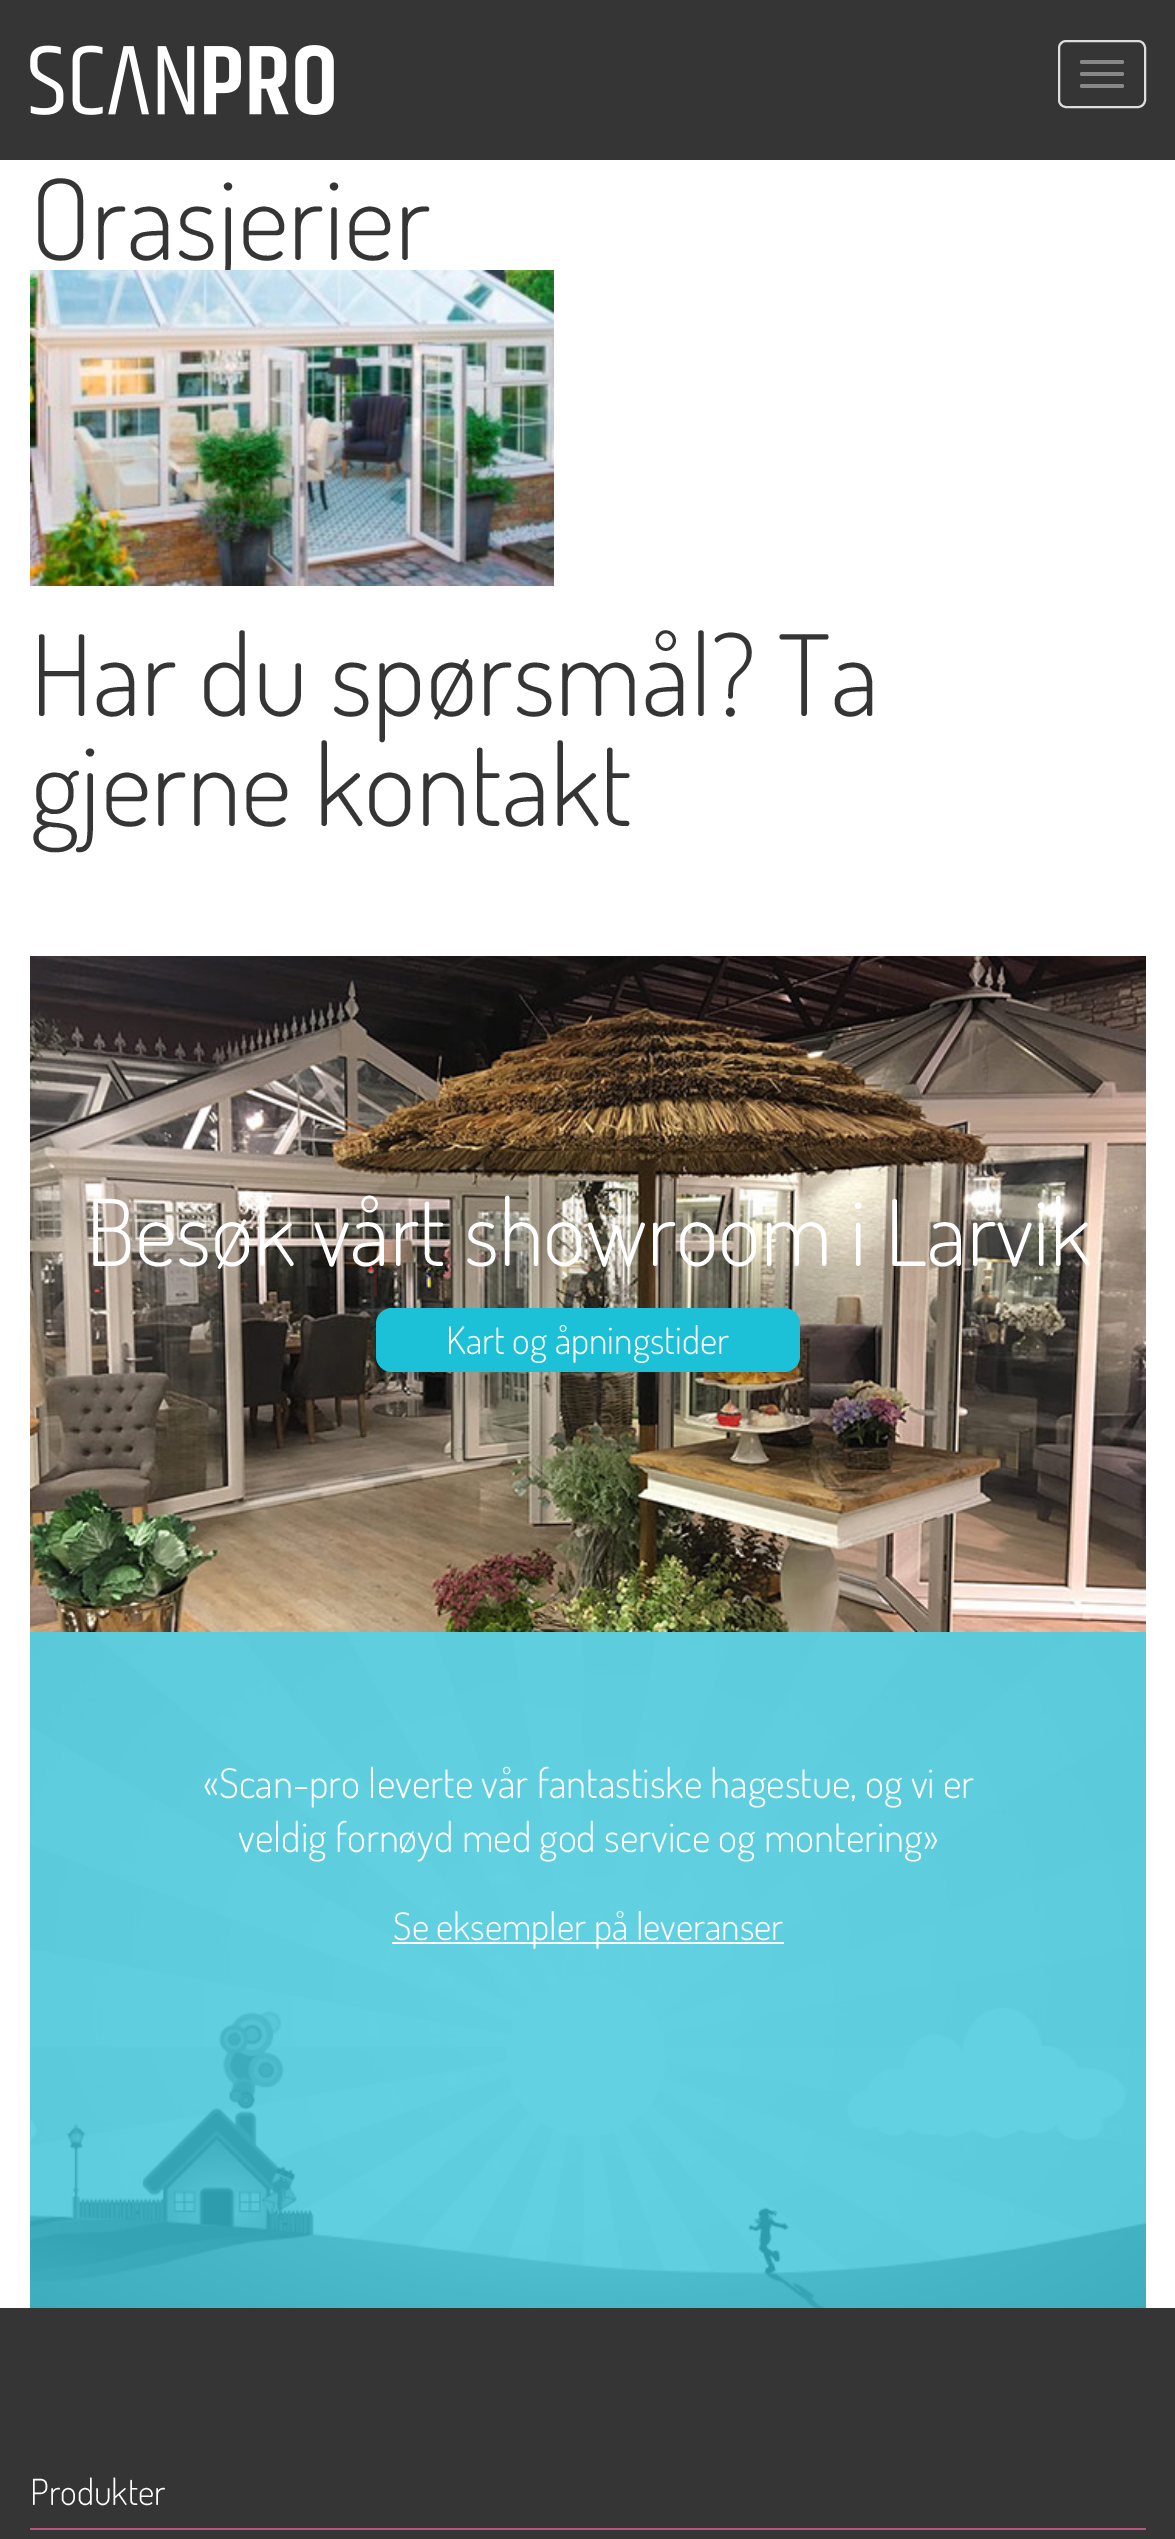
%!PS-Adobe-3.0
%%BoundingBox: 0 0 1175 2539
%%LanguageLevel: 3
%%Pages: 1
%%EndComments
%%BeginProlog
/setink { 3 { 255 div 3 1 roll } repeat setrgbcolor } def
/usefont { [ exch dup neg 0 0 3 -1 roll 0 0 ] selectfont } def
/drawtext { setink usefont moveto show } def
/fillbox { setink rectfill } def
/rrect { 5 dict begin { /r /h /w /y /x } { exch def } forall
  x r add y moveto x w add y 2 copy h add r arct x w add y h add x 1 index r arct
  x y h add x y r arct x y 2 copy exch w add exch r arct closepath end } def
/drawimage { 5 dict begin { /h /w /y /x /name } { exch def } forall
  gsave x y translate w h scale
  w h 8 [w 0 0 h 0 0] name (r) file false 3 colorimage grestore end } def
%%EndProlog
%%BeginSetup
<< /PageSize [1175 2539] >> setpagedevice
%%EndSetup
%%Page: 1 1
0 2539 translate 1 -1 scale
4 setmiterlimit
0 0 1175 2539 255 255 255 fillbox
0 0 1175 160 52 53 52 fillbox
(assets/img1.rgb) 30 45 304 70 drawimage
221 221 221 setink
2 setlinewidth
1059 41 86 66 7 rrect stroke
136 136 136 setink
1080 60 44 4 2 rrect fill
1080 72 44 4 2 rrect fill
1080 84 44 4 2 rrect fill
(Orasjerier) 30 260 /Dosis-Light 112 52 53 52 drawtext
(assets/img2.rgb) 30 270 524 316 drawimage
(Har du spørsmål? Ta) 30 716 /Dosis-Light 112 52 53 52 drawtext
(gjerne kontakt) 30 826 /Dosis-Light 112 52 53 52 drawtext
(assets/img3.rgb) 30 956 1116 676 drawimage
(Besøk vårt showroom i Larvik) 86 1266 /Dosis-Light 92 255 255 255 drawtext
28 192 215 setink
376 1308 424 64 16 rrect fill
(Kart og åpningstider) 446 1354 /Dosis-Light 38 255 255 255 drawtext
(assets/img4.rgb) 30 1632 1116 676 drawimage
(«Scan-pro leverte vår fantastiske hagestue, og vi er) 203 1798 /Dosis-Light 40.9 255 255 255 drawtext
(veldig fornøyd med god service og montering») 238 1852 /Dosis-Light 40.9 255 255 255 drawtext
392 1942 392 2 255 255 255 fillbox
(Se eksempler på leveranser) 393 1940 /Dosis-Light 38 255 255 255 drawtext
0 2308 1175 231 52 53 52 fillbox
30 2528 1116 2 185 82 128 fillbox
(Produkter) 30 2505 /Dosis-Light 36 255 255 255 drawtext
showpage
%%EOF
